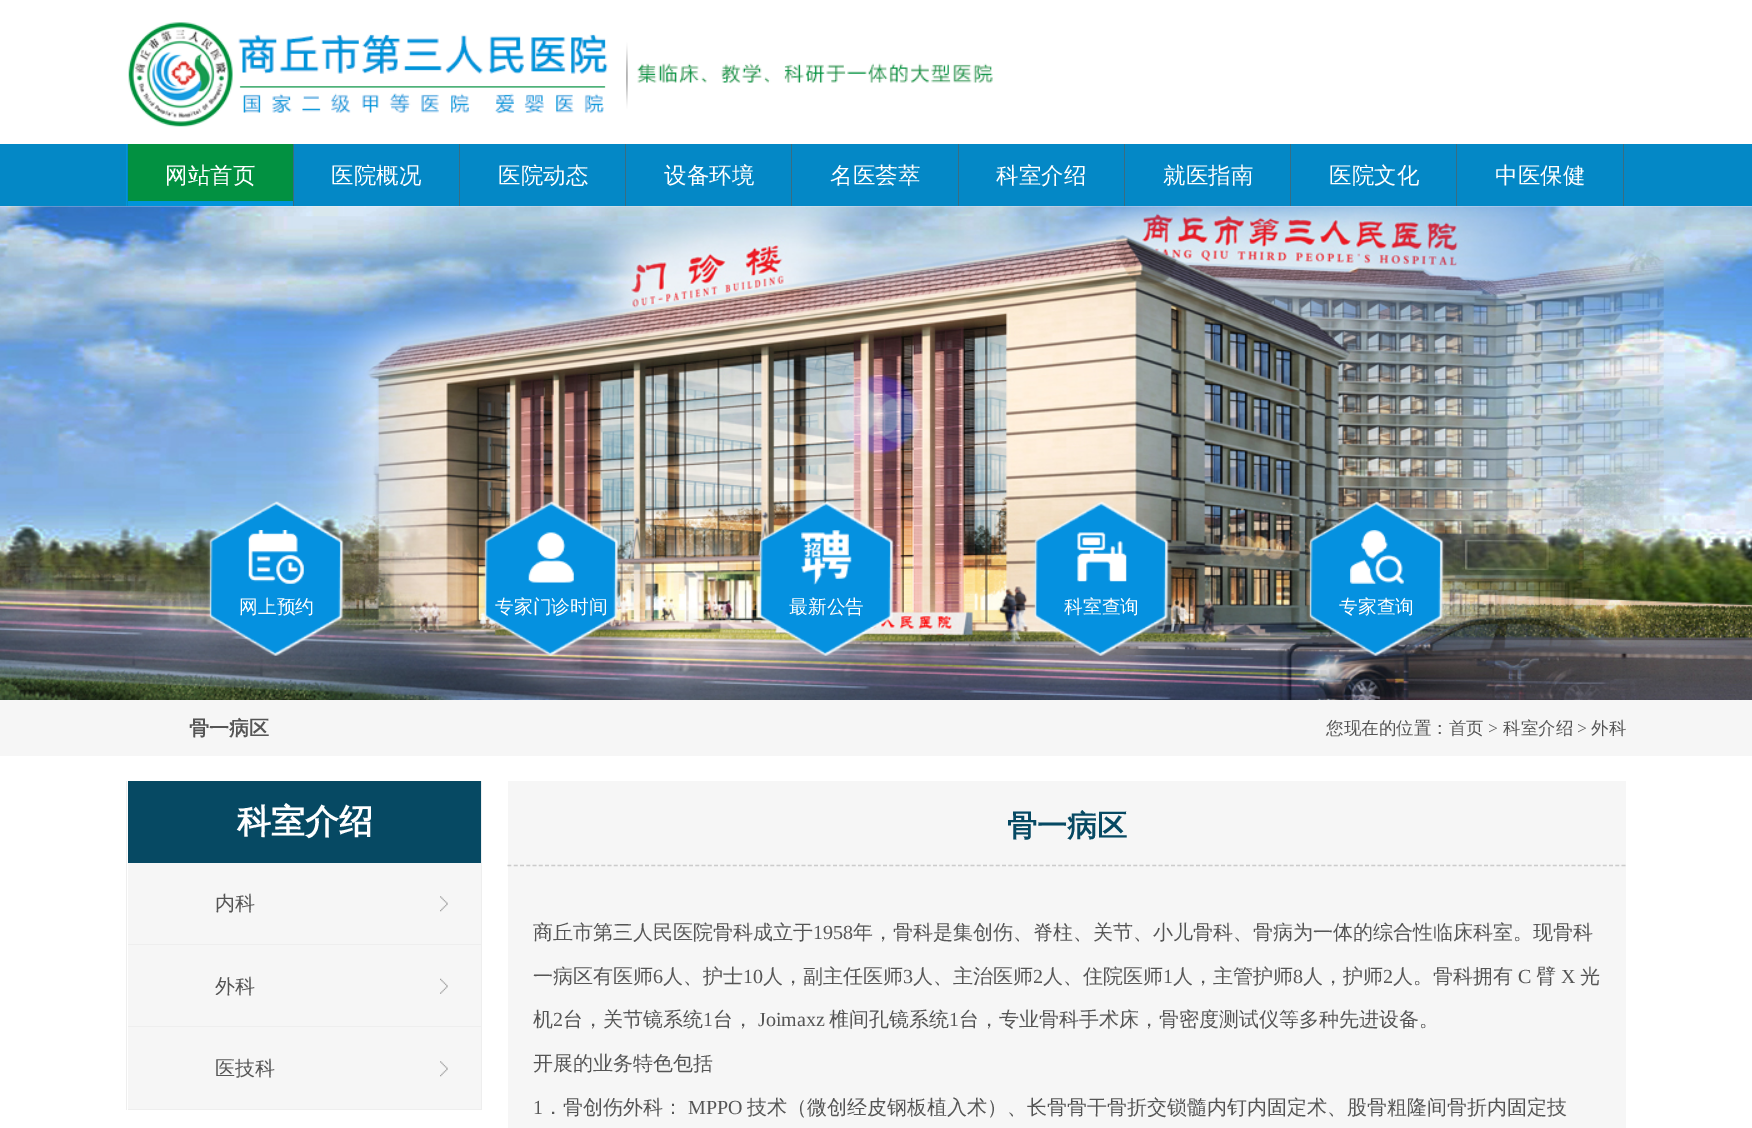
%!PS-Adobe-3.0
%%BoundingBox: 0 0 1752 1128
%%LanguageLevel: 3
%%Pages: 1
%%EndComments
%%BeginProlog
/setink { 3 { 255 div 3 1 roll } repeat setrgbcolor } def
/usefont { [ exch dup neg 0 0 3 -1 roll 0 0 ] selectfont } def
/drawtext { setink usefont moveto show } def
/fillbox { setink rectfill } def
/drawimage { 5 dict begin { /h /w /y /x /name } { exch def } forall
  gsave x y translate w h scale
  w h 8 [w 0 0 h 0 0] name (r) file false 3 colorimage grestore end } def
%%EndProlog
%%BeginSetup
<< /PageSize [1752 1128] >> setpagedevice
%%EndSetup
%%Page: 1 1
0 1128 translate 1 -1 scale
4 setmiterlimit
0 0 1752 1128 255 255 255 fillbox
(assets/img1.rgb) 128 22 865 105 drawimage
0 144 1752 62 4 136 198 fillbox
293 144 1 62 56 109 130 fillbox
126 144 1 62 0 148 218 fillbox
128 144 165 57 2 145 65 fillbox
128 201 165 5 0 148 218 fillbox
(网站首页) 165 183 /WenQuanYiZenHei-Medium 22.5 255 255 255 drawtext
459 144 1 62 56 109 130 fillbox
(医院概况) 331 183 /WenQuanYiZenHei-Medium 22.5 255 255 255 drawtext
625 144 1 62 56 109 130 fillbox
(医院动态) 498 183 /WenQuanYiZenHei-Medium 22.5 255 255 255 drawtext
791 144 1 62 56 109 130 fillbox
(设备环境) 664 183 /WenQuanYiZenHei-Medium 22.5 255 255 255 drawtext
958 144 1 62 56 109 130 fillbox
(名医荟萃) 830 183 /WenQuanYiZenHei-Medium 22.5 255 255 255 drawtext
1124 144 1 62 56 109 130 fillbox
(科室介绍) 996 183 /WenQuanYiZenHei-Medium 22.5 255 255 255 drawtext
1290 144 1 62 56 109 130 fillbox
(就医指南) 1163 183 /WenQuanYiZenHei-Medium 22.5 255 255 255 drawtext
1456 144 1 62 56 109 130 fillbox
(医院文化) 1329 183 /WenQuanYiZenHei-Medium 22.5 255 255 255 drawtext
1623 144 1 62 56 109 130 fillbox
(中医保健) 1495 183 /WenQuanYiZenHei-Medium 22.5 255 255 255 drawtext
(assets/img2.rgb) 0 206 1752 494 drawimage
(assets/img3.rgb) 207 501 138 155 drawimage
(assets/img4.rgb) 248 530 56 54 drawimage
(网上预约) 239 613 /WenQuanYiZenHei-Medium 18.75 255 255 255 drawtext
(assets/img5.rgb) 483 500 136 156 drawimage
(assets/img6.rgb) 528 532 46 51 drawimage
(专家门诊时间) 495 613 /WenQuanYiZenHei-Medium 18.75 255 255 255 drawtext
(assets/img7.rgb) 758 500 137 156 drawimage
(assets/img8.rgb) 801 530 51 55 drawimage
(最新公告) 789 613 /WenQuanYiZenHei-Medium 18.75 255 255 255 drawtext
(assets/img9.rgb) 1033 501 137 155 drawimage
(assets/img10.rgb) 1077 532 50 50 drawimage
(科室查询) 1064 613 /WenQuanYiZenHei-Medium 18.75 255 255 255 drawtext
(assets/img11.rgb) 1308 500 137 156 drawimage
(assets/img12.rgb) 1350 530 54 54 drawimage
(专家查询) 1339 613 /WenQuanYiZenHei-Medium 18.75 255 255 255 drawtext
0 700 1752 56 246 246 246 fillbox
(骨一病区) 189 735 /WenQuanYiZenHei-Bold 20 85 85 85 drawtext
(您现在的位置：首页) 1326 734 /WenQuanYiZenHei-Medium 17.5 85 85 85 drawtext
(>) 1488 734 /LiberationSerif-Regular 17.5 85 85 85 drawtext
(科室介绍) 1503 734 /WenQuanYiZenHei-Medium 17.5 85 85 85 drawtext
(>) 1577 734 /LiberationSerif-Regular 17.5 85 85 85 drawtext
(外科) 1591 734 /WenQuanYiZenHei-Medium 17.5 85 85 85 drawtext
481 781 1 329 238 238 238 fillbox
126 781 1 329 238 238 238 fillbox
128 781 353 82 6 73 99 fillbox
(科室介绍) 237 833 /WenQuanYiZenHei-Bold 34 255 255 255 drawtext
128 863 353 81 246 246 246 fillbox
(assets/img13.rgb) 440 896 8 16 drawimage
128 944 353 1 238 238 238 fillbox
(内科) 215 910 /WenQuanYiZenHei-Medium 20 85 85 85 drawtext
128 945 353 164 246 246 246 fillbox
(assets/img14.rgb) 440 978 8 16 drawimage
128 1026 353 1 238 238 238 fillbox
(外科) 215 993 /WenQuanYiZenHei-Medium 20 85 85 85 drawtext
(assets/img13.rgb) 440 1061 8 16 drawimage
128 1109 353 1 238 238 238 fillbox
(医技科) 215 1075 /WenQuanYiZenHei-Medium 20 85 85 85 drawtext
508 781 1118 347 246 246 246 fillbox
204 204 204 setink
1.2 setlinewidth
[3.75 2.51] 0 setdash
507.5 865.5 moveto 1626 865.5 lineto stroke
(骨一病区) 1007 836 /WenQuanYiZenHei-Bold 30 6 73 99 drawtext
(商丘市第三人民医院骨科成立于) 533 939 /WenQuanYiZenHei-Medium 20 85 85 85 drawtext
(1958) 813 939 /LiberationSerif-Regular 20 85 85 85 drawtext
(年，骨科是集创伤、脊柱、关节、小儿骨科、骨病为一体的综合性临床科室。现骨科) 853 939 /WenQuanYiZenHei-Medium 20 85 85 85 drawtext
(一病区有医师) 533 983 /WenQuanYiZenHei-Medium 20 85 85 85 drawtext
(6) 653 983 /LiberationSerif-Regular 20 85 85 85 drawtext
(人、护士) 663 983 /WenQuanYiZenHei-Medium 20 85 85 85 drawtext
(10) 743 983 /LiberationSerif-Regular 20 85 85 85 drawtext
(人，副主任医师) 763 983 /WenQuanYiZenHei-Medium 20 85 85 85 drawtext
(3) 903 983 /LiberationSerif-Regular 20 85 85 85 drawtext
(人、主治医师) 913 983 /WenQuanYiZenHei-Medium 20 85 85 85 drawtext
(2) 1033 983 /LiberationSerif-Regular 20 85 85 85 drawtext
(人、住院医师) 1043 983 /WenQuanYiZenHei-Medium 20 85 85 85 drawtext
(1) 1163 983 /LiberationSerif-Regular 20 85 85 85 drawtext
(人，主管护师) 1173 983 /WenQuanYiZenHei-Medium 20 85 85 85 drawtext
(8) 1293 983 /LiberationSerif-Regular 20 85 85 85 drawtext
(人，护师) 1303 983 /WenQuanYiZenHei-Medium 20 85 85 85 drawtext
(2) 1383 983 /LiberationSerif-Regular 20 85 85 85 drawtext
(人。骨科拥有) 1393 983 /WenQuanYiZenHei-Medium 20 85 85 85 drawtext
(C) 1518 983 /LiberationSerif-Regular 20 85 85 85 drawtext
(臂) 1536 983 /WenQuanYiZenHei-Medium 20 85 85 85 drawtext
(X) 1561 983 /LiberationSerif-Regular 20 85 85 85 drawtext
(光) 1580 983 /WenQuanYiZenHei-Medium 20 85 85 85 drawtext
(机) 533 1026 /WenQuanYiZenHei-Medium 20 85 85 85 drawtext
(2) 553 1026 /LiberationSerif-Regular 20 85 85 85 drawtext
(台，关节镜系统) 563 1026 /WenQuanYiZenHei-Medium 20 85 85 85 drawtext
(1) 703 1026 /LiberationSerif-Regular 20 85 85 85 drawtext
(台，) 713 1026 /WenQuanYiZenHei-Medium 20 85 85 85 drawtext
(Joimaxz) 758 1026 /LiberationSerif-Regular 20 85 85 85 drawtext
(椎间孔镜系统) 829 1026 /WenQuanYiZenHei-Medium 20 85 85 85 drawtext
(1) 949 1026 /LiberationSerif-Regular 20 85 85 85 drawtext
(台，专业骨科手术床，骨密度测试仪等多种先进设备。) 959 1026 /WenQuanYiZenHei-Medium 20 85 85 85 drawtext
(开展的业务特色包括) 533 1070 /WenQuanYiZenHei-Medium 20 85 85 85 drawtext
(1) 533 1114 /LiberationSerif-Regular 20 85 85 85 drawtext
(．骨创伤外科：) 543 1114 /WenQuanYiZenHei-Medium 20 85 85 85 drawtext
(MPPO) 688 1114 /LiberationSerif-Regular 20 85 85 85 drawtext
(技术（微创经皮钢板植入术）、长骨骨干骨折交锁髓内钉内固定术、股骨粗隆间骨折内固定技) 747 1114 /WenQuanYiZenHei-Medium 20 85 85 85 drawtext
showpage
%%EOF
